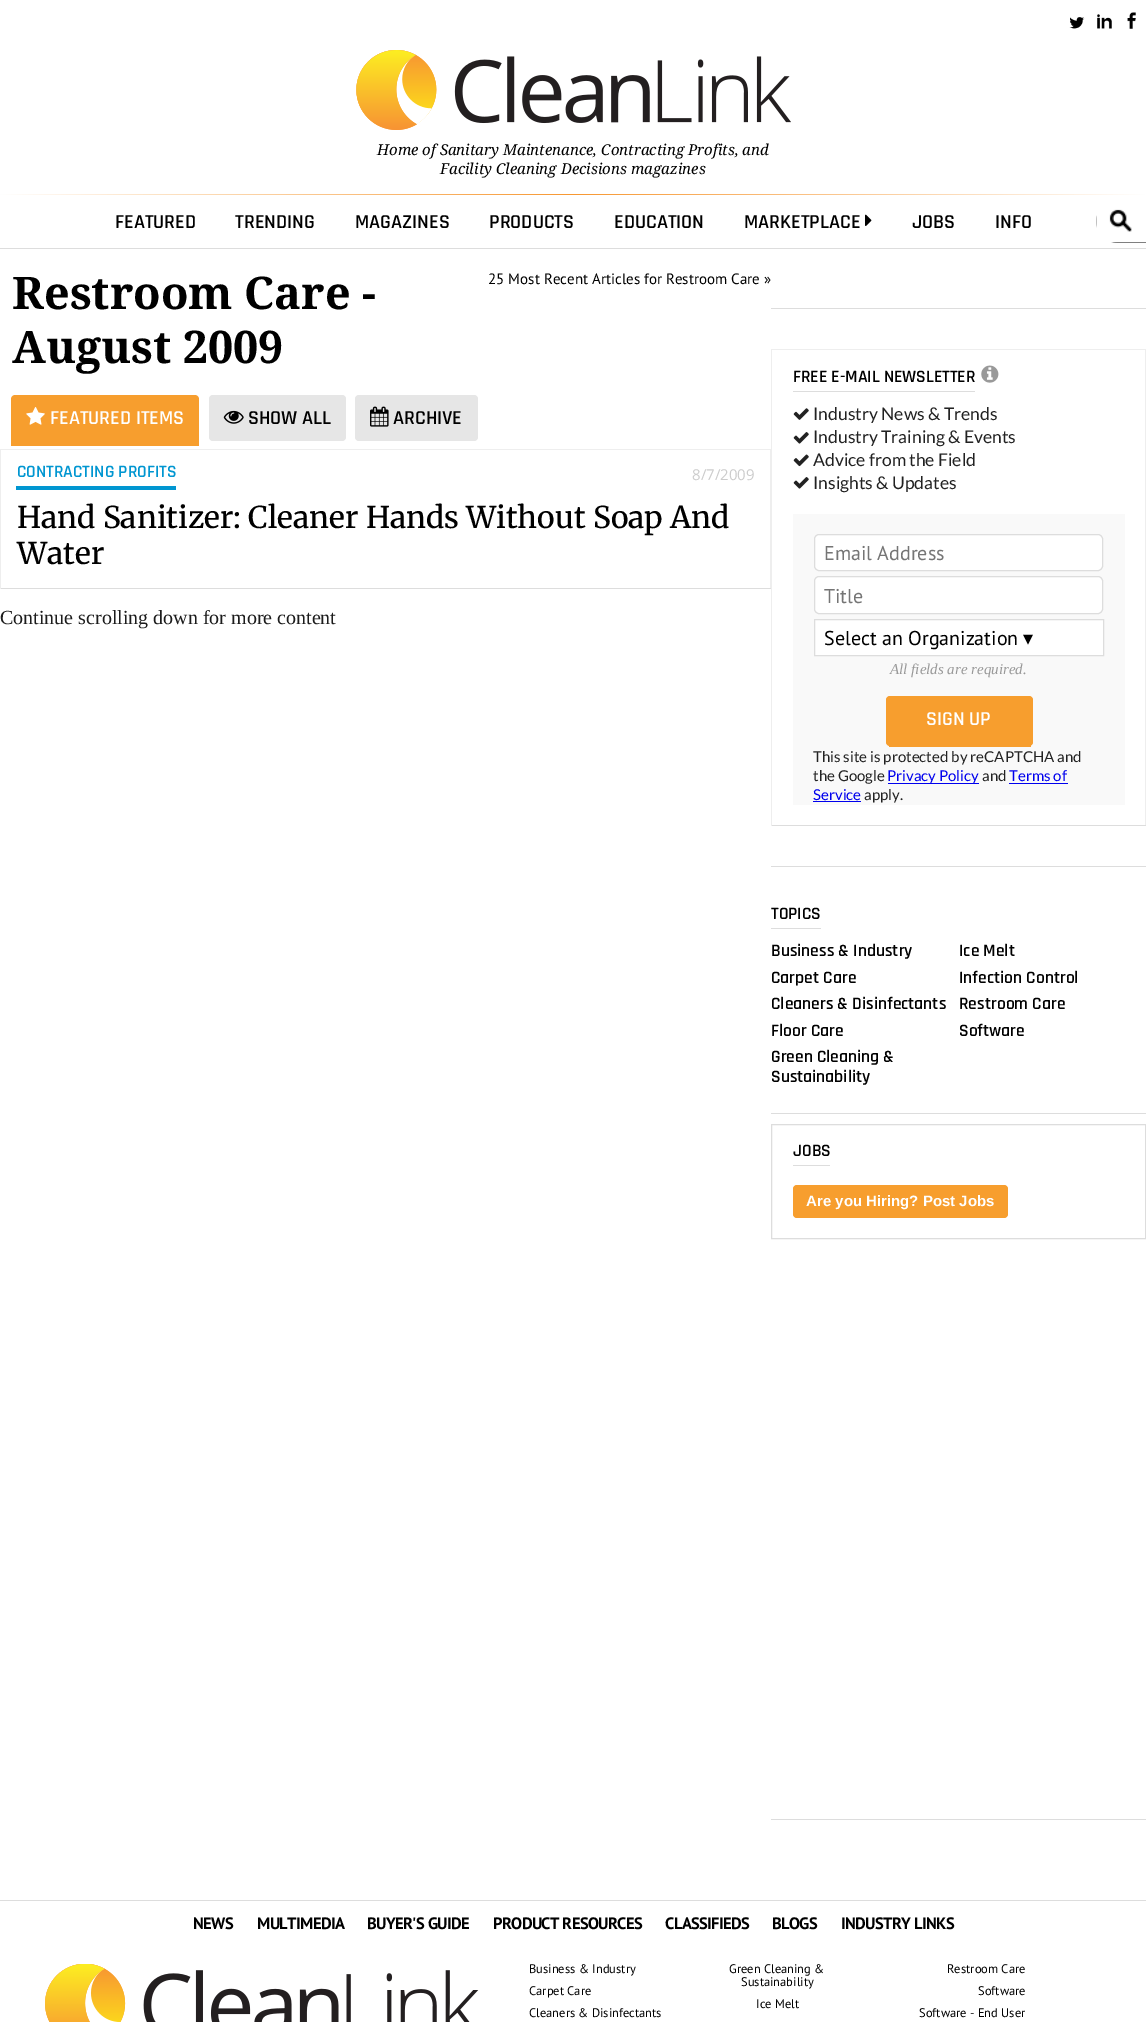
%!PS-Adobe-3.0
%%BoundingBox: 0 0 1146 2022
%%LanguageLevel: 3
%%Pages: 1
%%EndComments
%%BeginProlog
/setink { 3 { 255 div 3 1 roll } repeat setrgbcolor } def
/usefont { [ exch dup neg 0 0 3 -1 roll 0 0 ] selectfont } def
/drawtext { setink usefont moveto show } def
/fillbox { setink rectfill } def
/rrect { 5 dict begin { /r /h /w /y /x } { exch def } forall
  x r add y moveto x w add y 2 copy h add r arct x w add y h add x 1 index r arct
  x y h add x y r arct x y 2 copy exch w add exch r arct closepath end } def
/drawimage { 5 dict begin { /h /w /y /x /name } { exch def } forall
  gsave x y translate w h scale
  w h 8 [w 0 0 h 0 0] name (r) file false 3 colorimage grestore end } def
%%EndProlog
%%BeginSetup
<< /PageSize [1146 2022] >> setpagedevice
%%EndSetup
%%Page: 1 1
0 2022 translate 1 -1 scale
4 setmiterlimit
0 0 1146 2022 255 255 255 fillbox
(assets/img1.rgb) 1069 17 16 12 drawimage
(assets/img2.rgb) 1097 14 15 15 drawimage
(assets/img3.rgb) 1127 12 9 17 drawimage
(assets/img4.rgb) 356 50 435 80 drawimage
(Home of Sanitary Maintenance, Contracting Profits, and) 377 155 /DroidSerif-Italic 15 0 0 0 drawtext
(Facility Cleaning Decisions magazines) 440 174 /DroidSerif-Italic 15 0 0 0 drawtext
gsave 0 194 moveto 1146 194 lineto 1146 195 lineto 0 195 lineto closepath clip newpath
<< /ShadingType 2 /ColorSpace /DeviceRGB /Coords [0 194 1146 194] /Extend [true true] /Function << /FunctionType 3 /Domain [0 1] /Functions [<< /FunctionType 2 /Domain [0 1] /C0 [1 1 1] /C1 [0.996 0.945 0.886] /N 1 >> << /FunctionType 2 /Domain [0 1] /C0 [0.996 0.945 0.886] /C1 [0.969 0.596 0.196] /N 1 >> << /FunctionType 2 /Domain [0 1] /C0 [0.969 0.596 0.196] /C1 [1 1 1] /N 1 >>] /Bounds [0.07 0.5] /Encode [0 1 0 1 0 1] >> >> shfill grestore
(FEATURED) 115 228 /Rajdhani-SemiBold 20 0 0 0 drawtext
(TRENDING) 235 228 /Rajdhani-SemiBold 20 0 0 0 drawtext
(MAGAZINES) 355 228 /Rajdhani-SemiBold 20 0 0 0 drawtext
(PRODUCTS) 489 228 /Rajdhani-SemiBold 20 0 0 0 drawtext
(EDUCATION) 614 228 /Rajdhani-SemiBold 20 0 0 0 drawtext
(MARKETPLACE) 744 228 /Rajdhani-SemiBold 20 0 0 0 drawtext
(assets/img5.rgb) 865 214 7 12 drawimage
(JOBS) 912 228 /Rajdhani-SemiBold 20 0 0 0 drawtext
(INFO) 995 228 /Rajdhani-SemiBold 20 0 0 0 drawtext
(assets/img7.rgb) 1096 216 50 27 drawimage
(assets/img6.rgb) 1096 200 50 43 drawimage
0 248 1146 1 221 221 221 fillbox
(Restroom Care -) 12 309 /DroidSerif-Bold 45 0 0 0 drawtext
(August 2009) 12 363 /DroidSerif-Bold 45 0 0 0 drawtext
(25 Most Recent Articles for Restroom Care ») 488 284 /PTSans-Regular 15 0 0 0 drawtext
247 158 46 setink
15 395 moveto 195 395 lineto 197 395 199 397 199 399 curveto 199 446 lineto 11 446 lineto 11 399 lineto 11 397 13 395 15 395 curveto closepath fill
(assets/img8.rgb) 26 407 19 18 drawimage
(FEATURED ITEMS) 50 424 /Rajdhani-SemiBold 20 255 255 255 drawtext
230 230 230 setink
209 395 137 46 4 rrect fill
(assets/img9.rgb) 223 410 21 14 drawimage
(SHOW ALL) 248 424 /Rajdhani-SemiBold 20 0 0 0 drawtext
230 230 230 setink
355 395 123 46 4 rrect fill
(assets/img10.rgb) 370 406 19 21 drawimage
(ARCHIVE) 393 424 /Rajdhani-SemiBold 20 0 0 0 drawtext
0 449 771 1 238 238 238 fillbox
770 449 1 140 238 238 238 fillbox
0 588 771 1 221 221 221 fillbox
0 449 1 140 238 238 238 fillbox
16 486 160 4 0 150 209 fillbox
(CONTRACTING PROFITS) 17 477 /Rajdhani-SemiBold 17.5 0 150 209 drawtext
(8/7/2009) 692 480 /OpenSans-Regular 15 204 204 204 drawtext
(Hand Sanitizer: Cleaner Hands Without Soap And) 17 528 /Merriweather-Medium 30 0 0 0 drawtext
(Water) 17 564 /Merriweather-Medium 30 0 0 0 drawtext
(Continue scrolling down for more content) 0 624 /LiberationSerif-Regular 20 28 28 28 drawtext
771 308 375 1 221 221 221 fillbox
771 349 375 1 238 238 238 fillbox
1145 349 1 477 238 238 238 fillbox
771 825 375 1 221 221 221 fillbox
771 349 1 477 238 238 238 fillbox
793 391 182 1 221 221 221 fillbox
(FREE E-MAIL NEWSLETTER) 793 382 /Rajdhani-SemiBold 17.5 0 0 0 drawtext
(assets/img11.rgb) 981 365 18 18 drawimage
(assets/img12.rgb) 793 408 16 12 drawimage
(Industry News & Trends) 813 420 /Lato-Regular 17.5 34 34 34 drawtext
(assets/img13.rgb) 793 432 16 12 drawimage
(Industry Training & Events) 813 443 /Lato-Regular 17.5 34 34 34 drawtext
(assets/img14.rgb) 793 454 16 13 drawimage
(Advice from the Field) 813 466 /Lato-Regular 17.5 34 34 34 drawtext
(assets/img13.rgb) 793 477 16 12 drawimage
(Insights & Updates) 813 489 /Lato-Regular 17.5 34 34 34 drawtext
793 514 332 291 249 249 249 fillbox
255 255 255 setink
814.5 534.5 288 36 4.5 rrect gsave fill grestore
221 221 221 setink
stroke
(Email Address) 824 560 /PTSans-Regular 20 117 117 117 drawtext
255 255 255 setink
814.5 576.5 288 37 4.5 rrect gsave fill grestore
221 221 221 setink
stroke
(Title) 824 603 /PTSans-Regular 20 117 117 117 drawtext
255 255 255 setink
814.5 619.5 moveto 1103.5 619.5 lineto 1103.5 655.5 lineto 814.5 655.5 lineto closepath gsave fill grestore
221 221 221 setink
stroke
(Select an Organization) 824 645 /PTSans-Regular 20 0 0 0 drawtext
(▾) 1023 645 /DejaVuSans-Regular 20 0 0 0 drawtext
(All fields are required.) 890 674 /LiberationSerif-Italic 15 153 153 153 drawtext
247 158 46 setink
886 696 147 50 4 rrect fill
889 745 142 2 247 158 46 fillbox
(SIGN UP) 926 725 /Rajdhani-SemiBold 20 255 255 255 drawtext
(This site is protected by reCAPTCHA and) 813 762 /Lato-Regular 15 34 34 34 drawtext
(the Google) 813 781 /Lato-Regular 15 34 34 34 drawtext
888 783 91 1 0 0 238 fillbox
(Privacy Policy) 887 781 /Lato-Regular 15 0 0 238 drawtext
(and) 982 781 /Lato-Regular 15 34 34 34 drawtext
(Terms of) 1009 781 /Lato-Regular 15 0 0 238 drawtext
1009 783 59 1 0 0 238 fillbox
(Service) 813 800 /Lato-Regular 15 0 0 238 drawtext
813 801 48 1 0 0 238 fillbox
(apply.) 864 800 /Lato-Regular 15 34 34 34 drawtext
771 866 375 1 221 221 221 fillbox
771 928 50 1 221 221 221 fillbox
(TOPICS) 771 919 /Rajdhani-SemiBold 17.5 0 0 0 drawtext
(Business & Industry) 771 956 /Rajdhani-SemiBold 17.5 0 0 0 drawtext
(Carpet Care) 771 983 /Rajdhani-SemiBold 17.5 0 0 0 drawtext
(Cleaners & Disinfectants) 771 1009 /Rajdhani-SemiBold 17.5 0 0 0 drawtext
(Floor Care) 771 1036 /Rajdhani-SemiBold 17.5 0 0 0 drawtext
(Green Cleaning &) 771 1062 /Rajdhani-SemiBold 17.5 0 0 0 drawtext
(Sustainability) 771 1082 /Rajdhani-SemiBold 17.5 0 0 0 drawtext
(Ice Melt) 959 956 /Rajdhani-SemiBold 17.5 0 0 0 drawtext
(Infection Control) 959 983 /Rajdhani-SemiBold 17.5 0 0 0 drawtext
(Restroom Care) 959 1009 /Rajdhani-SemiBold 17.5 0 0 0 drawtext
(Software) 959 1036 /Rajdhani-SemiBold 17.5 0 0 0 drawtext
771 1113 375 1 221 221 221 fillbox
771.5 1124.5 374 114 rectstroke
793 1165 37 1 221 221 221 fillbox
(JOBS) 793 1156 /Rajdhani-SemiBold 17.5 0 0 0 drawtext
247 158 46 setink
793 1185 215 33 4 rrect fill
(Are you Hiring? Post Jobs) 806 1206 /LiberationSans-Bold 15 255 255 255 drawtext
771 1819 375 1 221 221 221 fillbox
0 1900 1146 1 221 221 221 fillbox
/PTSans-Bold 16.5 usefont
0 0 0 setink
193 1929 moveto -0.6 0 (NEWS) ashow
257 1929 moveto -0.6 0 (MULTIMEDIA) ashow
367 1929 moveto -0.6 0 (BUYER'S GUIDE) ashow
493 1929 moveto -0.6 0 (PRODUCT RESOURCES) ashow
665 1929 moveto -0.6 0 (CLASSIFIEDS) ashow
772 1929 moveto -0.6 0 (BLOGS) ashow
841 1929 moveto -0.6 0 (INDUSTRY LINKS) ashow
(assets/img15.rgb) 45 1964 434 58 drawimage
(Business & Industry) 529 1973 /PTSans-Regular 12.5 0 0 0 drawtext
(Carpet Care) 529 1995 /PTSans-Regular 12.5 0 0 0 drawtext
(Cleaners & Disinfectants) 529 2017 /PTSans-Regular 12.5 0 0 0 drawtext
(Green Cleaning &) 729 1973 /PTSans-Regular 12.5 0 0 0 drawtext
(Sustainability) 741 1986 /PTSans-Regular 12.5 0 0 0 drawtext
(Ice Melt) 756 2008 /PTSans-Regular 12.5 0 0 0 drawtext
(Restroom Care) 947 1973 /PTSans-Regular 12.5 0 0 0 drawtext
(Software) 978 1995 /PTSans-Regular 12.5 0 0 0 drawtext
(Software - End User) 919 2017 /PTSans-Regular 12.5 0 0 0 drawtext
showpage
%%EOF
